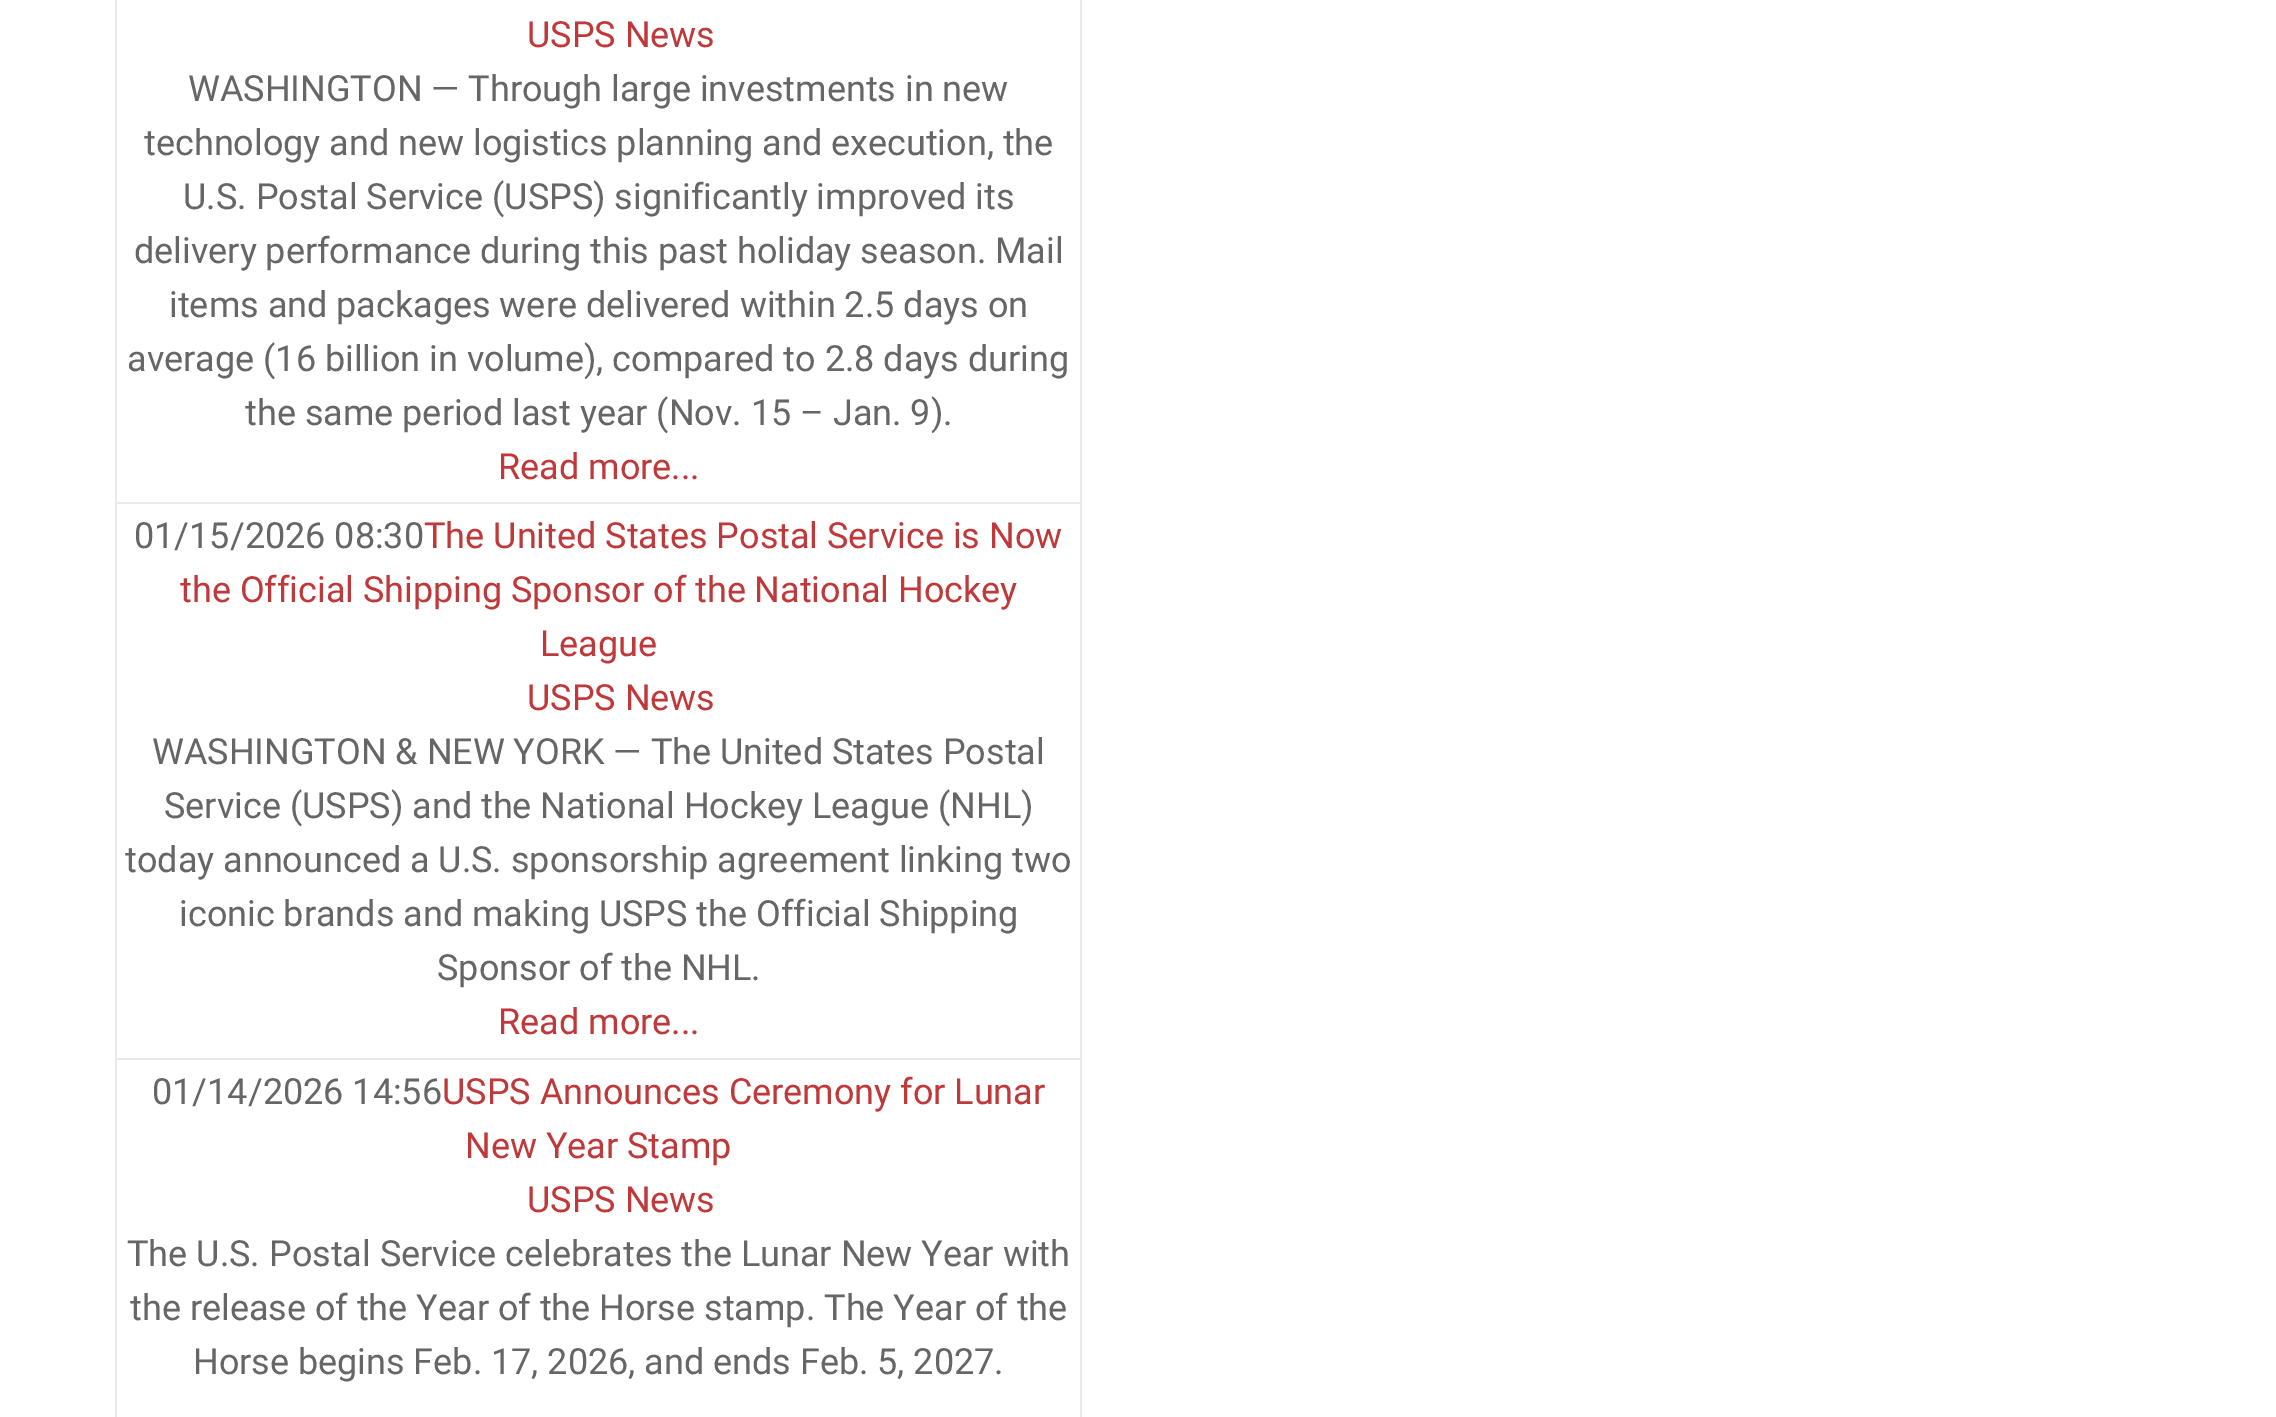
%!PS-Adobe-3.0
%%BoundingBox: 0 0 2276 1417
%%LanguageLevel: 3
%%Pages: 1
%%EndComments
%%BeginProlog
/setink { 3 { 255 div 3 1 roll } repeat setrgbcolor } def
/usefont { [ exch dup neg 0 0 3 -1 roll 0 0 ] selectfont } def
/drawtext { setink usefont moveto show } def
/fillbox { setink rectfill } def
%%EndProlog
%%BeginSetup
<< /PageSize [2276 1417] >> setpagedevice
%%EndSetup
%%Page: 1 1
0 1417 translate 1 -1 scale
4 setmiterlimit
0 0 2276 1417 255 255 255 fillbox
1080 0 2 1417 234 234 234 fillbox
115 0 2 1417 234 234 234 fillbox
(USPS News) 527 47 /Roboto-Regular 36 191 56 58 drawtext
(WASHINGTON — Through large investments in new) 188 101 /Roboto-Regular 36 102 102 102 drawtext
(technology and new logistics planning and execution, the) 144 155 /Roboto-Regular 36 102 102 102 drawtext
(U.S. Postal Service \(USPS\) significantly improved its) 183 209 /Roboto-Regular 36 102 102 102 drawtext
(delivery performance during this past holiday season. Mail) 134 263 /Roboto-Regular 36 102 102 102 drawtext
(items and packages were delivered within 2.5 days on) 169 317 /Roboto-Regular 36 102 102 102 drawtext
(average \(16 billion in volume\), compared to 2.8 days during) 127 371 /Roboto-Regular 36 102 102 102 drawtext
(the same period last year \(Nov. 15 – Jan. 9\).) 245 425 /Roboto-Regular 36 102 102 102 drawtext
(Read more...) 498 479 /Roboto-Regular 36 191 56 58 drawtext
115 502 967 2 234 234 234 fillbox
(01/15/2026 08:30) 134 548 /Roboto-Regular 36 102 102 102 drawtext
(The United States Postal Service is Now) 424 548 /Roboto-Regular 36 191 56 58 drawtext
(the Official Shipping Sponsor of the National Hockey) 180 602 /Roboto-Regular 36 191 56 58 drawtext
(League) 540 656 /Roboto-Regular 36 191 56 58 drawtext
(USPS News) 527 710 /Roboto-Regular 36 191 56 58 drawtext
(WASHINGTON & NEW YORK — The United States Postal) 152 764 /Roboto-Regular 36 102 102 102 drawtext
(Service \(USPS\) and the National Hockey League \(NHL\)) 164 818 /Roboto-Regular 36 102 102 102 drawtext
(today announced a U.S. sponsorship agreement linking two) 125 872 /Roboto-Regular 36 102 102 102 drawtext
(iconic brands and making USPS the Official Shipping) 179 926 /Roboto-Regular 36 102 102 102 drawtext
(Sponsor of the NHL.) 437 980 /Roboto-Regular 36 102 102 102 drawtext
(Read more...) 498 1034 /Roboto-Regular 36 191 56 58 drawtext
115 1058 967 2 234 234 234 fillbox
(01/14/2026 14:56) 152 1104 /Roboto-Regular 36 102 102 102 drawtext
(USPS Announces Ceremony for Lunar) 442 1104 /Roboto-Regular 36 191 56 58 drawtext
(New Year Stamp) 465 1158 /Roboto-Regular 36 191 56 58 drawtext
(USPS News) 527 1212 /Roboto-Regular 36 191 56 58 drawtext
(The U.S. Postal Service celebrates the Lunar New Year with) 127 1266 /Roboto-Regular 36 102 102 102 drawtext
(the release of the Year of the Horse stamp. The Year of the) 130 1320 /Roboto-Regular 36 102 102 102 drawtext
(Horse begins Feb. 17, 2026, and ends Feb. 5, 2027.) 193 1374 /Roboto-Regular 36 102 102 102 drawtext
showpage
%%EOF
